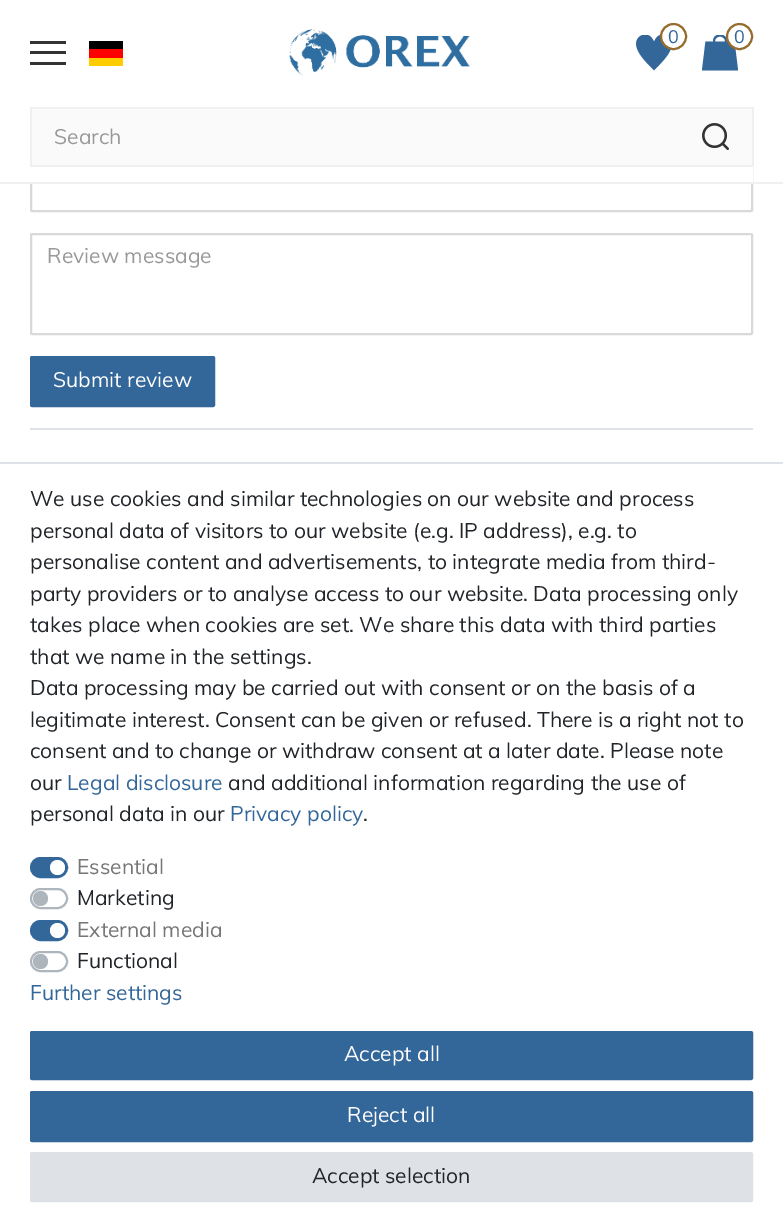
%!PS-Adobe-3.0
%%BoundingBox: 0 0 783 1232
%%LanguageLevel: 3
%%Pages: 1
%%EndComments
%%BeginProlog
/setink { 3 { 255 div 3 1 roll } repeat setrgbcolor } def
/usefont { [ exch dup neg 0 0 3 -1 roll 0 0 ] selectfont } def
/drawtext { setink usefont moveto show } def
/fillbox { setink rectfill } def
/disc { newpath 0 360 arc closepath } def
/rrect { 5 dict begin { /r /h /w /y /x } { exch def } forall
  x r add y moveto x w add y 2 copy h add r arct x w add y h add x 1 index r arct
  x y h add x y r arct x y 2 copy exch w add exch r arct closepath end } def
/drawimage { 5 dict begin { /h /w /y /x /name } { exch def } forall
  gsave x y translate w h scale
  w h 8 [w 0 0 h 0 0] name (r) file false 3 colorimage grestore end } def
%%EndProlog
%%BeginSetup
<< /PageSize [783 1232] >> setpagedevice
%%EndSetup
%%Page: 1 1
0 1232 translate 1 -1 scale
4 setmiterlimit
0 0 783 1232 255 255 255 fillbox
217 217 217 setink
2 setlinewidth
31 162 721 49 1 rrect stroke
30 161 723 21 255 255 255 fillbox
0 182 783 2 240 240 240 fillbox
(assets/img1.rgb) 289 29 181 47 drawimage
(assets/img2.rgb) 636 35 35 36 drawimage
255 255 255 setink
673.5 36.5 12.5 disc gsave fill grestore
150 109 47 setink
stroke
(0) 668 43 /Muli-Regular 18 51 102 153 drawtext
gsave
702 35 36 36 rectclip
734.5 41.5 moveto 727 41.5 lineto 727 32 713 32 713 41.5 curveto 705.5 41.5 lineto 702 70.5 lineto 738 70.5 lineto closepath 725 41.5 moveto 715 41.5 lineto 715 35 724.5 35 725 41 curveto closepath fill
grestore
255 255 255 setink
739.5 36.5 12.5 disc gsave fill grestore
150 109 47 setink
stroke
(0) 734 43 /Muli-Regular 18 51 102 153 drawtext
30 51 36 3 51 51 51 fillbox
30 41 36 3 51 51 51 fillbox
30 62 36 3 51 51 51 fillbox
89 58 34 8 255 204 0 fillbox
89 41 34 8 0 0 0 fillbox
89 49 34 9 255 0 0 fillbox
32 109 720 56 250 250 250 fillbox
30 107 723 2 240 240 240 fillbox
30 165 650 2 240 240 240 fillbox
30 107 2 60 240 240 240 fillbox
(Search) 54 144 /Muli-Regular 21 153 153 153 drawtext
752 107 2 60 240 240 240 fillbox
680 165 73 2 240 240 240 fillbox
(assets/img3.rgb) 702 123 27 27 drawimage
217 217 217 setink
31 234 721 100 1 rrect stroke
(Review message) 47 263 /Muli-Regular 21 153 153 153 drawtext
51 102 153 setink
31 357 183 49 1 rrect gsave fill grestore
stroke
(Submit review) 53 387 /Muli-Regular 21 255 255 255 drawtext
30 428 723 2 222 226 230 fillbox
0 462 783 2 222 226 230 fillbox
(We use cookies and similar technologies on our website and process) 30 506 /Muli-Regular 21 33 37 41 drawtext
(personal data of visitors to our website \(e.g. IP address\), e.g. to) 30 538 /Muli-Regular 21 33 37 41 drawtext
(personalise content and advertisements, to integrate media from third-) 30 569 /Muli-Regular 21 33 37 41 drawtext
(party providers or to analyse access to our website. Data processing only) 30 601 /Muli-Regular 21 33 37 41 drawtext
(takes place when cookies are set. We share this data with third parties) 30 632 /Muli-Regular 21 33 37 41 drawtext
(that we name in the settings.) 30 664 /Muli-Regular 21 33 37 41 drawtext
(Data processing may be carried out with consent or on the basis of a) 30 695 /Muli-Regular 21 33 37 41 drawtext
(legitimate interest. Consent can be given or refused. There is a right not to) 30 727 /Muli-Regular 21 33 37 41 drawtext
(consent and to change or withdraw consent at a later date. Please note) 30 758 /Muli-Regular 21 33 37 41 drawtext
(our) 30 790 /Muli-Regular 21 33 37 41 drawtext
(Legal disclosure) 67 790 /Muli-Regular 21 51 102 153 drawtext
(and additional information regarding the use of) 228 790 /Muli-Regular 21 33 37 41 drawtext
(personal data in our) 30 821 /Muli-Regular 21 33 37 41 drawtext
(Privacy policy) 230 821 /Muli-Regular 21 51 102 153 drawtext
(.) 363 821 /Muli-Regular 21 33 37 41 drawtext
51 102 153 setink
31 858 36 19 9.5 rrect gsave fill grestore
stroke
(Essential) 77 874 /Muli-Regular 21 118 118 118 drawtext
255 255 255 setink
57.5 867.5 7.5 disc fill
173 181 189 setink
31 889 36 19 9.5 rrect stroke
(Marketing) 77 905 /Muli-Regular 21 33 37 41 drawtext
173 181 189 setink
40.5 898.5 7.5 disc fill
51 102 153 setink
31 921 36 19 9.5 rrect gsave fill grestore
stroke
(External media) 77 937 /Muli-Regular 21 118 118 118 drawtext
255 255 255 setink
57.5 930.5 7.5 disc fill
173 181 189 setink
31 952 36 19 9.5 rrect stroke
(Functional) 77 968 /Muli-Regular 21 33 37 41 drawtext
173 181 189 setink
40.5 961.5 7.5 disc fill
(Further settings) 30 1000 /Muli-Regular 21 51 102 153 drawtext
31 1032 721 47 1 rrect gsave fill grestore
stroke
(Accept all) 344 1061 /Muli-Regular 21 255 255 255 drawtext
51 102 153 setink
31 1092 721 49 1 rrect gsave fill grestore
stroke
(Reject all) 347 1122 /Muli-Regular 21 255 255 255 drawtext
222 226 230 setink
31 1153 721 48 1 rrect gsave fill grestore
stroke
(Accept selection) 312 1183 /Muli-Regular 21 33 37 41 drawtext
showpage
%%EOF
